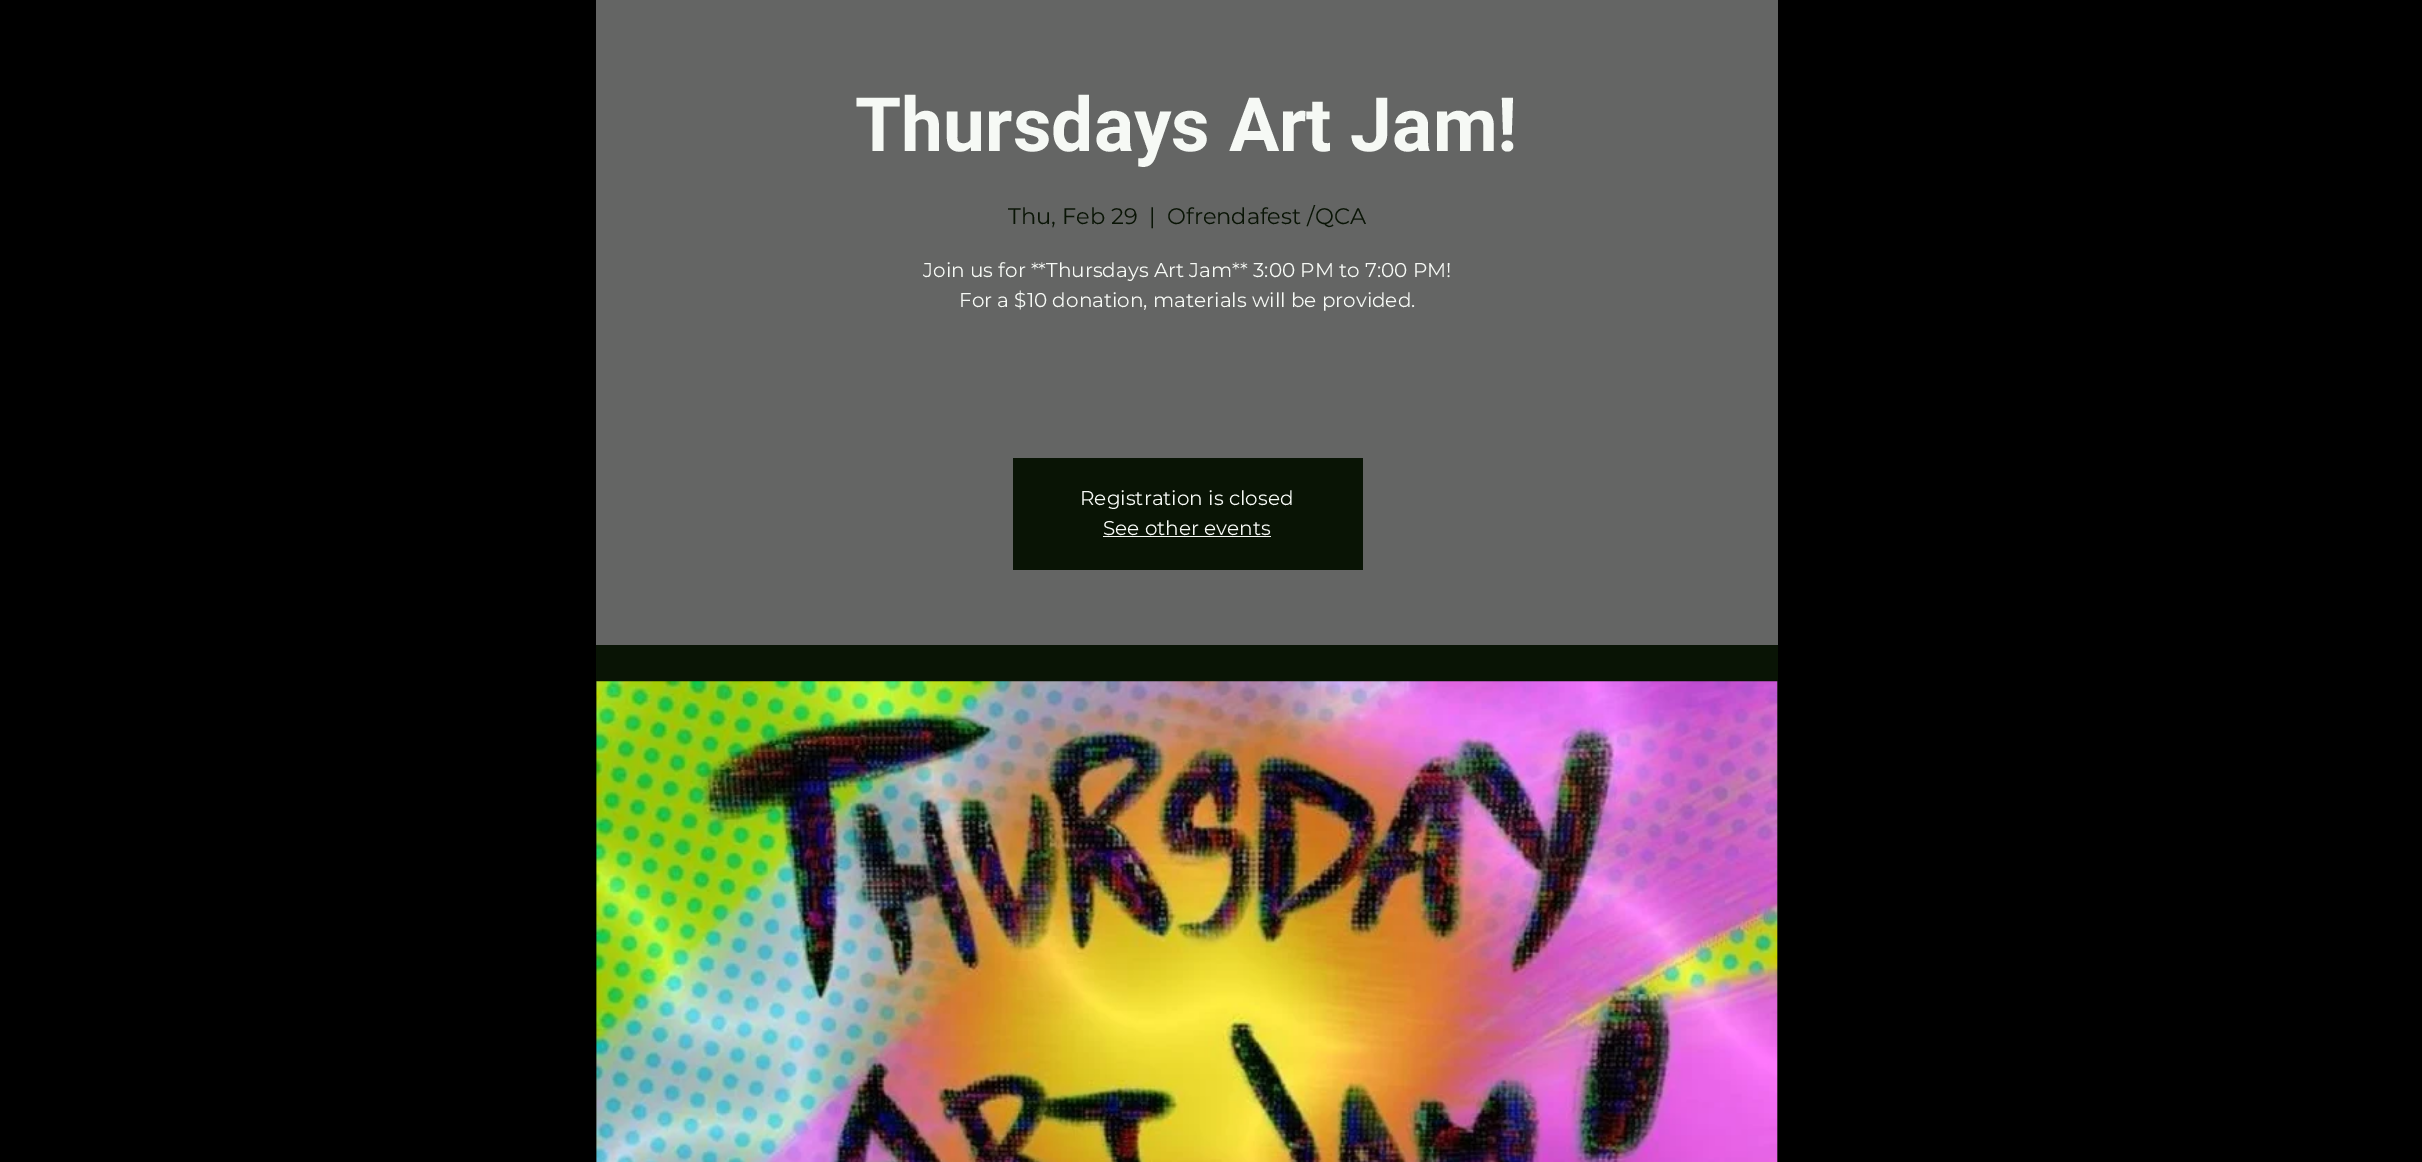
%!PS-Adobe-3.0
%%BoundingBox: 0 0 2422 1162
%%LanguageLevel: 3
%%Pages: 1
%%EndComments
%%BeginProlog
/setink { 3 { 255 div 3 1 roll } repeat setrgbcolor } def
/usefont { [ exch dup neg 0 0 3 -1 roll 0 0 ] selectfont } def
/drawtext { setink usefont moveto show } def
/fillbox { setink rectfill } def
/drawimage { 5 dict begin { /h /w /y /x /name } { exch def } forall
  gsave x y translate w h scale
  w h 8 [w 0 0 h 0 0] name (r) file false 3 colorimage grestore end } def
%%EndProlog
%%BeginSetup
<< /PageSize [2422 1162] >> setpagedevice
%%EndSetup
%%Page: 1 1
0 1162 translate 1 -1 scale
4 setmiterlimit
0 0 2422 1162 0 0 0 fillbox
596 0 1182 645 100 101 100 fillbox
(Thursdays Art Jam!) 855 151 /Roboto-Bold 75 246 249 245 drawtext
(Thu, Feb 29) 1008 224 /Montserrat-Regular 22.5 9 20 5 drawtext
(|) 1149 224 /Montserrat-Regular 22.5 9 20 5 drawtext
(Ofrendafest /QCA) 1167 224 /Montserrat-Regular 22.5 9 20 5 drawtext
(Join us for **Thursdays Art Jam** 3:00 PM to 7:00 PM!) 923 277 /Montserrat-Regular 20 246 249 245 drawtext
(For a $10 donation, materials will be provided.) 959 307 /Montserrat-Regular 20 246 249 245 drawtext
1013 458 350 112 9 20 5 fillbox
(Registration is closed) 1080 505 /Montserrat-Regular 20 246 249 245 drawtext
(See other events) 1103 535 /Montserrat-Regular 20 246 249 245 drawtext
1103 536 168 1 246 249 245 fillbox
596 645 1182 517 9 20 5 fillbox
(assets/img1.rgb) 596 681 1182 481 drawimage
showpage
%%EOF
